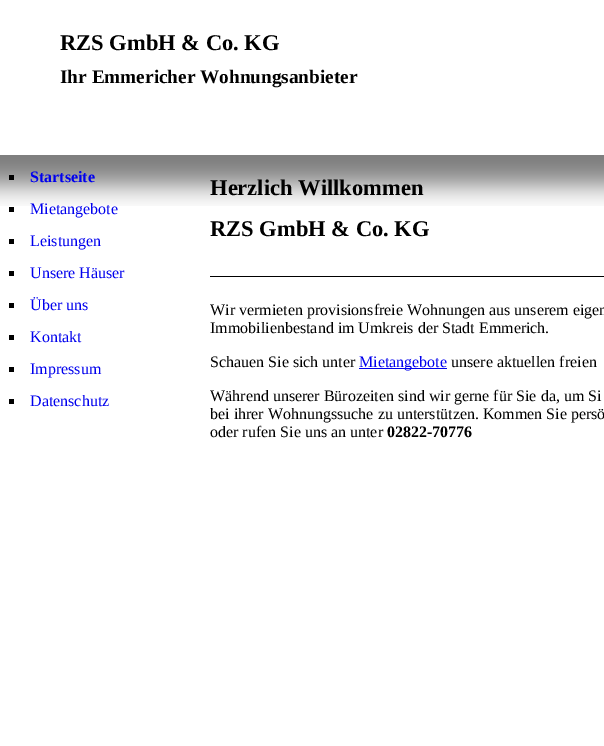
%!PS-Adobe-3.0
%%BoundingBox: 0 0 604 746
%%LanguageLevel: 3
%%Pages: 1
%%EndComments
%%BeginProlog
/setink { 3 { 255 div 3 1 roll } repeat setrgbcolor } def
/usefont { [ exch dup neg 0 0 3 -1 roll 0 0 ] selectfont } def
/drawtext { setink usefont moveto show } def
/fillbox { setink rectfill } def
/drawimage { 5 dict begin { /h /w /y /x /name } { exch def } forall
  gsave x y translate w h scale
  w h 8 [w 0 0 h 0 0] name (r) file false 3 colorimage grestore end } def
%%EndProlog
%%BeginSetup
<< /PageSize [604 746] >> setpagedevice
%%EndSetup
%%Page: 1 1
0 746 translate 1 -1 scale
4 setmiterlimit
0 0 604 746 255 255 255 fillbox
(assets/img1.rgb) 0 155 604 51 drawimage
(RZS GmbH & Co. KG) 60 50 /LiberationSerif-Bold 22.5 0 0 0 drawtext
(Ihr Emmericher Wohnungsanbieter) 60 83 /LiberationSerif-Bold 19.25 0 0 0 drawtext
9 175 5 5 0 0 0 fillbox
(Startseite) 30 182 /LiberationSerif-Bold 16 0 0 238 drawtext
9 207 5 5 0 0 0 fillbox
(Mietangebote) 30 214 /LiberationSerif-Regular 16 0 0 238 drawtext
9 239 5 5 0 0 0 fillbox
(Leistungen) 30 246 /LiberationSerif-Regular 16 0 0 238 drawtext
9 271 5 5 0 0 0 fillbox
(Unsere Häuser) 30 278 /LiberationSerif-Regular 16 0 0 238 drawtext
9 303 5 5 0 0 0 fillbox
(Über uns) 30 310 /LiberationSerif-Regular 16 0 0 238 drawtext
9 335 5 5 0 0 0 fillbox
(Kontakt) 30 342 /LiberationSerif-Regular 16 0 0 238 drawtext
9 367 5 5 0 0 0 fillbox
(Impressum) 30 374 /LiberationSerif-Regular 16 0 0 238 drawtext
9 399 5 5 0 0 0 fillbox
(Datenschutz) 30 406 /LiberationSerif-Regular 16 0 0 238 drawtext
(Herzlich Willkommen) 210 195 /LiberationSerif-Bold 22.5 0 0 0 drawtext
(RZS GmbH & Co. KG) 210 236 /LiberationSerif-Bold 22.5 0 0 0 drawtext
210 276 394 1 0 0 0 fillbox
(Wir vermieten provisionsfreie Wohnungen aus unserem eigen) 210 315 /LiberationSerif-Regular 16 0 0 0 drawtext
(Immobilienbestand im Umkreis der Stadt Emmerich.) 210 333 /LiberationSerif-Regular 16 0 0 0 drawtext
(Schauen Sie sich unter) 210 367 /LiberationSerif-Regular 16 0 0 0 drawtext
359 368 88 1 0 0 238 fillbox
(Mietangebote) 359 367 /LiberationSerif-Regular 16 0 0 238 drawtext
(unsere aktuellen freien) 451 367 /LiberationSerif-Regular 16 0 0 0 drawtext
(Während unserer Bürozeiten sind wir gerne für Sie da, um Si) 210 401 /LiberationSerif-Regular 16 0 0 0 drawtext
(bei ihrer Wohnungssuche zu unterstützen. Kommen Sie persö) 210 419 /LiberationSerif-Regular 16 0 0 0 drawtext
(oder rufen Sie uns an unter) 210 437 /LiberationSerif-Regular 16 0 0 0 drawtext
(02822-70776) 387 437 /LiberationSerif-Bold 16 0 0 0 drawtext
showpage
%%EOF
